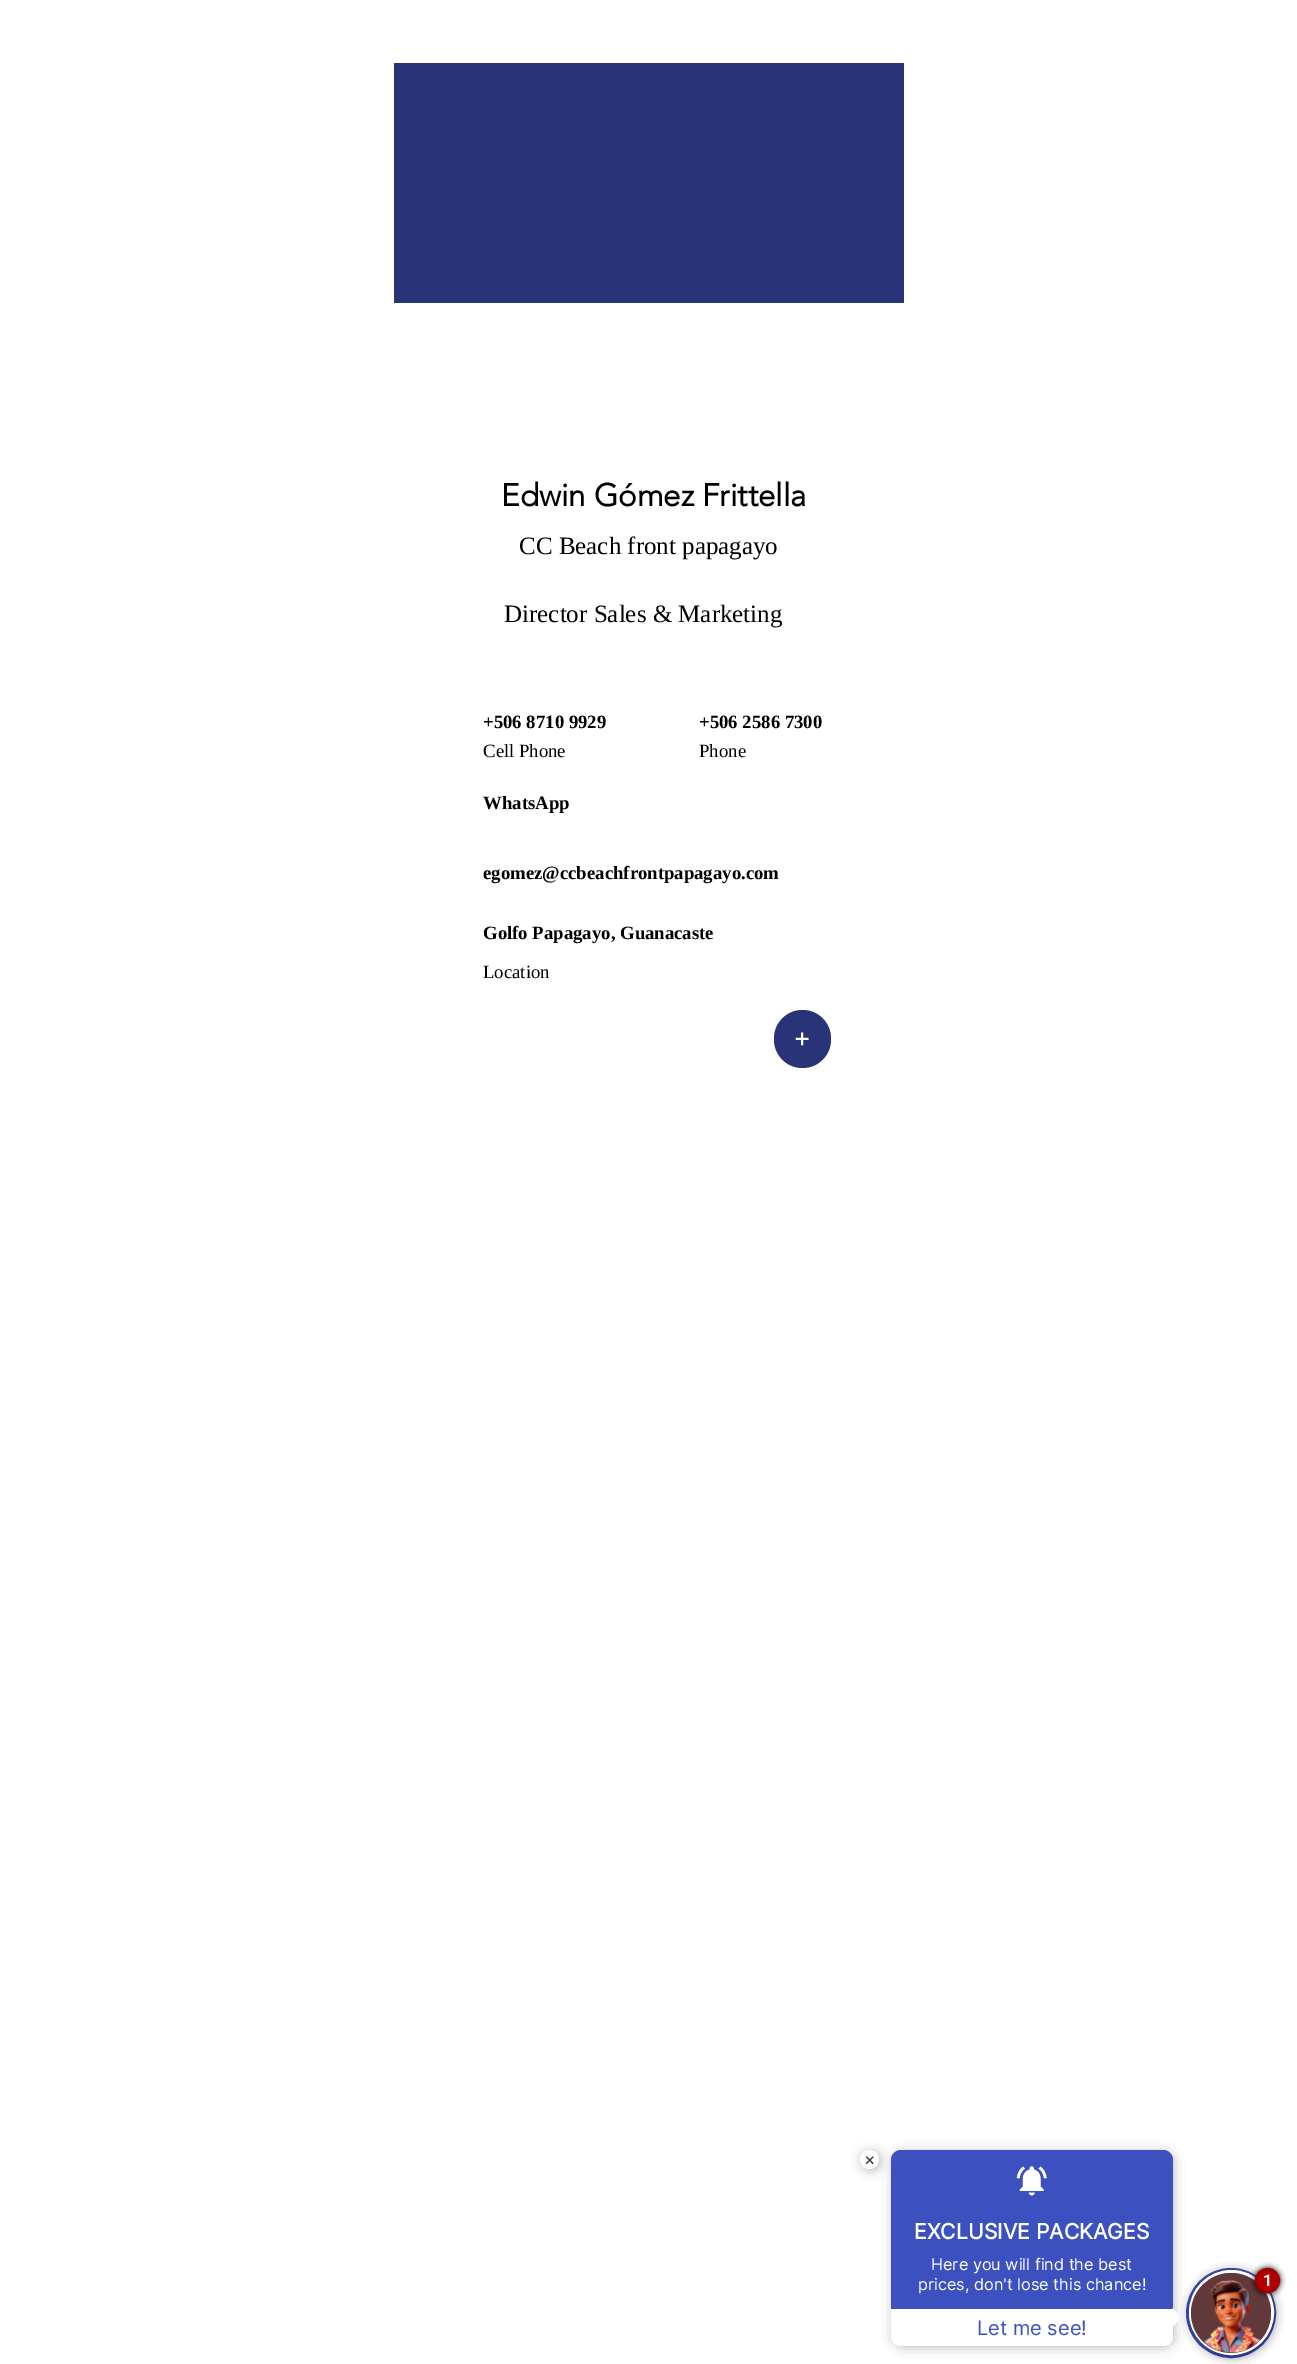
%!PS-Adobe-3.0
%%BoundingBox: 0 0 1297 2364
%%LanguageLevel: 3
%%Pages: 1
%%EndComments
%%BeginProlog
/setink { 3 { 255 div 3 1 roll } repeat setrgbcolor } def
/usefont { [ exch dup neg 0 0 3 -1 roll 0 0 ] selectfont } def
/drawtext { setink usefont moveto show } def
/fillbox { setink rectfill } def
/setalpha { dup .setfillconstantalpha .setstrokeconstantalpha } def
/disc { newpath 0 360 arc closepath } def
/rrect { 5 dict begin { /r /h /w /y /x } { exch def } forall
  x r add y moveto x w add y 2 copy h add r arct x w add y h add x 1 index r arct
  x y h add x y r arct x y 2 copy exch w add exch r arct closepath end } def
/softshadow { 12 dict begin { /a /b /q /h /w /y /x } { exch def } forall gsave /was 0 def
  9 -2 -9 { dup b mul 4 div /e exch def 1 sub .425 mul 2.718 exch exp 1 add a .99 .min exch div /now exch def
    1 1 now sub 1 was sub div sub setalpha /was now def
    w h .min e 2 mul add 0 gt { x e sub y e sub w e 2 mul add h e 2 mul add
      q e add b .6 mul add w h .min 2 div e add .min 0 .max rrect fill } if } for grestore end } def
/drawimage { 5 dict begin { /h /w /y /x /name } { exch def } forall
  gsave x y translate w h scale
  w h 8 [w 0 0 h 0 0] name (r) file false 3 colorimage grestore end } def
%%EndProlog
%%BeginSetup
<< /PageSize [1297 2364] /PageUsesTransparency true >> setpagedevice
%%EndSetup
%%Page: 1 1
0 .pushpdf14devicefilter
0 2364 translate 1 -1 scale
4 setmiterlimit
0 0 1297 2364 255 255 255 fillbox
394 63 510 240 41 51 119 fillbox
(Edwin Gómez Frittella) 501 506 /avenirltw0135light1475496-Bold 31.25 0 0 0 drawtext
(CC Beach front papagayo) 519 554 /LiberationSerif-Regular 25 0 0 0 drawtext
(Director Sales & Marketing) 504 622 /LiberationSerif-Regular 25 0 0 0 drawtext
(+506 8710 9929) 483 728 /LiberationSerif-Bold 18.75 0 0 0 drawtext
(+506 2586 7300) 699 728 /LiberationSerif-Bold 18.75 0 0 0 drawtext
(Cell Phone) 483 757 /LiberationSerif-Regular 18.75 0 0 0 drawtext
(Phone) 699 757 /LiberationSerif-Regular 18.75 0 0 0 drawtext
(WhatsApp) 483 809 /LiberationSerif-Bold 18.75 0 0 0 drawtext
(egomez@ccbeachfrontpapagayo.com) 483 879 /LiberationSerif-Bold 18.75 0 0 0 drawtext
(Golfo Papagayo, Guanacaste) 483 939 /LiberationSerif-Bold 18.75 0 0 0 drawtext
(Location) 483 978 /LiberationSerif-Regular 18.75 0 0 0 drawtext
41 51 119 setink
774 1010 57 58 28.5 rrect fill
(+) 795 1048 /Poppins-Regular 25 255 255 255 drawtext
170 170 170 setink
894 2153 279 193 9 6 1 softshadow
61 80 192 setink
3 setlinewidth
1231 2313 43.5 disc stroke
891 2150 282 196 10 rrect fill
255 255 255 setink
891 2309 moveto 1173 2309 lineto 1173 2337 lineto 1173 2342 1169 2346 1164 2346 curveto 900 2346 lineto 895 2346 891 2342 891 2337 curveto closepath fill
1172.5 2308.5 moveto 1182 2318.5 1182 2316.5 1172.5 2326.5 curveto 1163.5 2317.5 lineto closepath fill
0 0 0 setink
1194 2275 77 78 38.5 6 1 softshadow
97 57 59 setink
1231.5 2312.5 41 disc gsave fill grestore
255 255 255 setink
stroke
170 170 170 setink
863 2153 16 16 8 6 1 softshadow
255 255 255 setink
869.5 2159.5 9.5 disc fill
(×) 865 2166 /Roboto-Regular 18 51 51 51 drawtext
(assets/img1.rgb) 1016 2166 31 30 drawimage
(EXCLUSIVE PACKAGES) 914 2239 /Inter-Bold 21.25 255 255 255 drawtext
(Here you will find the best) 931 2270 /Inter-Regular 16.25 255 255 255 drawtext
(prices, don't lose this chance!) 918 2290 /Inter-Regular 16.25 255 255 255 drawtext
(Let me see!) 977 2335 /Inter-Regular 20 61 80 192 drawtext
97 57 59 setink
1231 2313 40 disc fill
(assets/img2.rgb) 1204 2280 57 73 drawimage
0 0 0 setink
1255 2268 25 25 12.5 3 1 softshadow
182 0 0 setink
1267.5 2280.5 11 disc gsave fill grestore
163 0 0 setink
stroke
(1) 1263 2286 /Roboto-Bold 16.25 255 255 255 drawtext
.poppdf14devicefilter showpage
%%EOF
